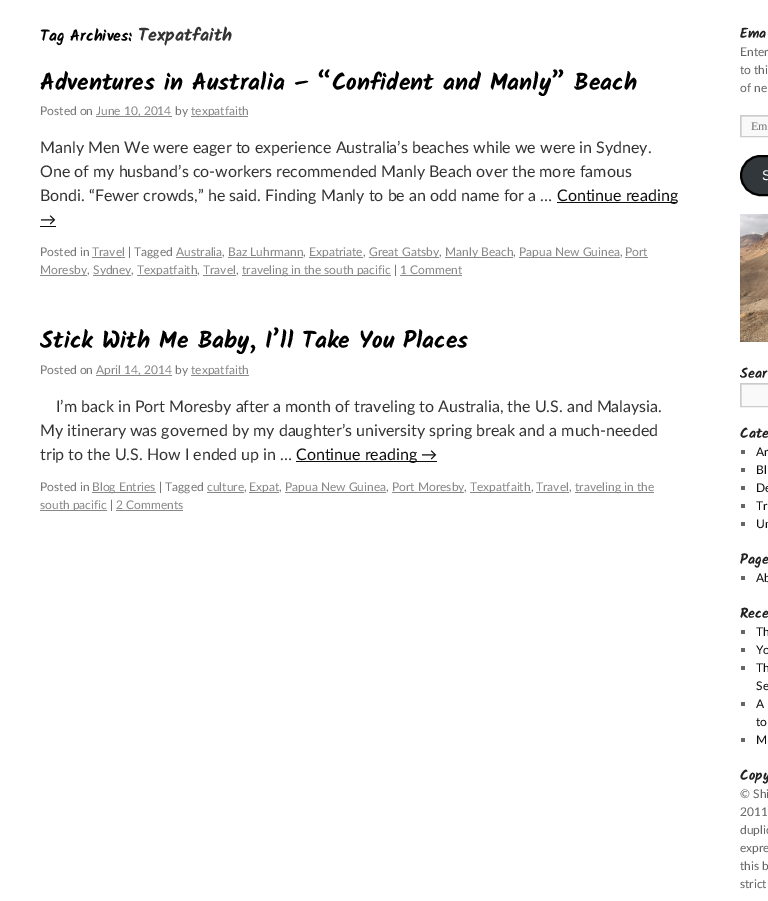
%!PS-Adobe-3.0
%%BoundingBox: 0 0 768 901
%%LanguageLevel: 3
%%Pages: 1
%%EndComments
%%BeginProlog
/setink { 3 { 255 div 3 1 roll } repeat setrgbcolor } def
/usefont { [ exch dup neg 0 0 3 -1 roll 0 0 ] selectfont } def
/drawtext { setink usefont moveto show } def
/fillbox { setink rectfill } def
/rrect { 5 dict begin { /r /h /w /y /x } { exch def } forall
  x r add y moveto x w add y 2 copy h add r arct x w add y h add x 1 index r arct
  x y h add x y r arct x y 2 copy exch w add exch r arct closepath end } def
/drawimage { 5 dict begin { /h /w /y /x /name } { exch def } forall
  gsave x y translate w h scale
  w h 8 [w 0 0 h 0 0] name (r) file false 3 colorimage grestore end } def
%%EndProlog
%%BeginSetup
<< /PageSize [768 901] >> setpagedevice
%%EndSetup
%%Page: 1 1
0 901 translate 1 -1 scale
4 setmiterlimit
0 0 768 901 255 255 255 fillbox
(Tag Archives:) 40 41 /Kalam-Bold 15.75 0 0 0 drawtext
(Texpatfaith) 138 41 /Kalam-Bold 18 51 51 51 drawtext
(Adventures in Australia – “Confident and Manly” Beach) 40 90 /Kalam-Bold 23.5 0 0 0 drawtext
(Posted on) 40 115 /Lato-Regular 12 119 119 119 drawtext
96 116 76 1 136 136 136 fillbox
(June 10, 2014) 96 115 /Lato-Regular 12 136 136 136 drawtext
(by) 175 115 /Lato-Regular 12 119 119 119 drawtext
191 116 57 1 136 136 136 fillbox
(texpatfaith) 191 115 /Lato-Regular 12 136 136 136 drawtext
(Manly Men We were eager to experience Australia’s beaches while we were in Sydney.) 40 153 /Lato-Regular 16 51 51 51 drawtext
(One of my husband’s co-workers recommended Manly Beach over the more famous) 40 177 /Lato-Regular 16 51 51 51 drawtext
(Bondi. “Fewer crowds,” he said. Finding Manly to be an odd name for a …) 40 201 /Lato-Regular 16 51 51 51 drawtext
557 202 120 1 15 14 14 fillbox
(Continue reading) 557 201 /Lato-Regular 16 15 14 14 drawtext
(→) 40 225 /Lato-Regular 16 15 14 14 drawtext
40 226 16 1 15 14 14 fillbox
(Posted in) 40 256 /Lato-Regular 12 119 119 119 drawtext
(Travel) 92 256 /Lato-Regular 12 136 136 136 drawtext
92 257 33 1 136 136 136 fillbox
(| Tagged) 128 256 /Lato-Regular 12 119 119 119 drawtext
(Australia) 176 256 /Lato-Regular 12 136 136 136 drawtext
(,) 222 256 /Lato-Regular 12 119 119 119 drawtext
176 257 46 1 136 136 136 fillbox
(Baz Luhrmann) 228 256 /Lato-Regular 12 136 136 136 drawtext
(,) 303 256 /Lato-Regular 12 119 119 119 drawtext
228 257 75 1 136 136 136 fillbox
309 257 54 1 136 136 136 fillbox
(Expatriate) 309 256 /Lato-Regular 12 136 136 136 drawtext
(,) 363 256 /Lato-Regular 12 119 119 119 drawtext
369 257 70 1 136 136 136 fillbox
(Great Gatsby) 369 256 /Lato-Regular 12 136 136 136 drawtext
(,) 439 256 /Lato-Regular 12 119 119 119 drawtext
445 257 68 1 136 136 136 fillbox
(Manly Beach) 445 256 /Lato-Regular 12 136 136 136 drawtext
(,) 513 256 /Lato-Regular 12 119 119 119 drawtext
519 257 101 1 136 136 136 fillbox
(Papua New Guinea) 519 256 /Lato-Regular 12 136 136 136 drawtext
(,) 620 256 /Lato-Regular 12 119 119 119 drawtext
625 257 23 1 136 136 136 fillbox
(Port) 625 256 /Lato-Regular 12 136 136 136 drawtext
40 275 47 1 136 136 136 fillbox
(Moresby) 40 274 /Lato-Regular 12 136 136 136 drawtext
(,) 87 274 /Lato-Regular 12 119 119 119 drawtext
93 275 38 1 136 136 136 fillbox
(Sydney) 93 274 /Lato-Regular 12 136 136 136 drawtext
(,) 131 274 /Lato-Regular 12 119 119 119 drawtext
137 275 60 1 136 136 136 fillbox
(Texpatfaith) 137 274 /Lato-Regular 12 136 136 136 drawtext
(,) 197 274 /Lato-Regular 12 119 119 119 drawtext
(Travel) 203 274 /Lato-Regular 12 136 136 136 drawtext
(,) 236 274 /Lato-Regular 12 119 119 119 drawtext
203 275 33 1 136 136 136 fillbox
242 275 149 1 136 136 136 fillbox
(traveling in the south pacific) 242 274 /Lato-Regular 12 136 136 136 drawtext
(|) 394 274 /Lato-Regular 12 119 119 119 drawtext
(1 Comment) 400 274 /Lato-Regular 12 136 136 136 drawtext
400 275 62 1 136 136 136 fillbox
(Stick With Me Baby, I’ll Take You Places) 40 348 /Kalam-Bold 23.5 0 0 0 drawtext
(Posted on) 40 374 /Lato-Regular 12 119 119 119 drawtext
96 375 76 1 136 136 136 fillbox
(April 14, 2014) 96 374 /Lato-Regular 12 136 136 136 drawtext
(by) 175 374 /Lato-Regular 12 119 119 119 drawtext
191 375 58 1 136 136 136 fillbox
(texpatfaith) 191 374 /Lato-Regular 12 136 136 136 drawtext
(I’m back in Port Moresby after a month of traveling to Australia, the U.S. and Malaysia.) 56 412 /Lato-Regular 16 51 51 51 drawtext
(My itinerary was governed by my daughter’s university spring break and a much-needed) 40 436 /Lato-Regular 16 51 51 51 drawtext
(trip to the U.S. How I ended up in …) 40 460 /Lato-Regular 16 51 51 51 drawtext
296 461 141 1 15 14 14 fillbox
(Continue reading →) 296 460 /Lato-Regular 16 15 14 14 drawtext
(Posted in) 40 491 /Lato-Regular 12 119 119 119 drawtext
92 492 64 1 136 136 136 fillbox
(Blog Entries) 92 491 /Lato-Regular 12 136 136 136 drawtext
(| Tagged) 159 491 /Lato-Regular 12 119 119 119 drawtext
(culture) 207 491 /Lato-Regular 12 136 136 136 drawtext
(,) 244 491 /Lato-Regular 12 119 119 119 drawtext
207 492 37 1 136 136 136 fillbox
249 492 30 1 136 136 136 fillbox
(Expat) 249 491 /Lato-Regular 12 136 136 136 drawtext
(,) 279 491 /Lato-Regular 12 119 119 119 drawtext
285 492 101 1 136 136 136 fillbox
(Papua New Guinea) 285 491 /Lato-Regular 12 136 136 136 drawtext
(,) 386 491 /Lato-Regular 12 119 119 119 drawtext
392 492 72 1 136 136 136 fillbox
(Port Moresby) 392 491 /Lato-Regular 12 136 136 136 drawtext
(,) 464 491 /Lato-Regular 12 119 119 119 drawtext
470 492 61 1 136 136 136 fillbox
(Texpatfaith) 470 491 /Lato-Regular 12 136 136 136 drawtext
(,) 531 491 /Lato-Regular 12 119 119 119 drawtext
(Travel) 536 491 /Lato-Regular 12 136 136 136 drawtext
(,) 569 491 /Lato-Regular 12 119 119 119 drawtext
536 492 33 1 136 136 136 fillbox
575 492 79 1 136 136 136 fillbox
(traveling in the) 575 491 /Lato-Regular 12 136 136 136 drawtext
40 510 67 1 136 136 136 fillbox
(south pacific) 40 509 /Lato-Regular 12 136 136 136 drawtext
(|) 110 509 /Lato-Regular 12 119 119 119 drawtext
(2 Comments) 116 509 /Lato-Regular 12 136 136 136 drawtext
116 510 67 1 136 136 136 fillbox
(Ema) 740 38 /Kalam-Bold 14 34 34 34 drawtext
(Enter) 740 56 /Lato-Regular 12 102 102 102 drawtext
(to thi) 740 74 /Lato-Regular 12 102 102 102 drawtext
(of ne) 740 92 /Lato-Regular 12 102 102 102 drawtext
742 117 26 19 249 249 249 fillbox
gsave
741 116 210 20 rectclip
224 224 224 setink
642 17 moveto 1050 17 lineto 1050 235 lineto 642 235 lineto closepath 742 117 moveto 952 117 lineto 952 137 lineto 742 137 lineto closepath eofill
grestore
204 204 204 setink
740.5 115.5 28 21 rectstroke
(Em) 751 130 /LiberationSerif-Regular 12 119 119 119 drawtext
50 55 60 setink
741 156 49 39 19.5 rrect gsave fill grestore
0 0 0 setink
2 setlinewidth
stroke
(S) 762 180 /LiberationSans-Regular 14 255 255 255 drawtext
(assets/img1.rgb) 740 214 28 128 drawimage
(Sear) 740 378 /Kalam-Bold 14 34 34 34 drawtext
742 385 26 21 249 249 249 fillbox
gsave
741 384 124 22 rectclip
224 224 224 setink
642 285 moveto 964 285 lineto 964 505 lineto 642 505 lineto closepath 742 385 moveto 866 385 lineto 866 407 lineto 742 407 lineto closepath eofill
grestore
204 204 204 setink
1 setlinewidth
740.5 383.5 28 23 rectstroke
(Cate) 740 438 /Kalam-Bold 14 34 34 34 drawtext
741 450 4 4 102 102 102 fillbox
(Ar) 756 456 /Lato-Regular 12 15 14 14 drawtext
741 468 4 4 102 102 102 fillbox
(Bl) 756 474 /Lato-Regular 12 15 14 14 drawtext
741 486 4 4 102 102 102 fillbox
(De) 756 492 /Lato-Regular 12 15 14 14 drawtext
741 504 4 4 102 102 102 fillbox
(Tr) 756 510 /Lato-Regular 12 15 14 14 drawtext
741 522 4 4 102 102 102 fillbox
(Un) 756 528 /Lato-Regular 12 15 14 14 drawtext
(Page) 740 564 /Kalam-Bold 14 34 34 34 drawtext
741 576 4 4 102 102 102 fillbox
(Ab) 756 582 /Lato-Regular 12 15 14 14 drawtext
(Rece) 740 618 /Kalam-Bold 14 34 34 34 drawtext
741 630 4 4 102 102 102 fillbox
(Th) 756 636 /Lato-Regular 12 15 14 14 drawtext
741 648 4 4 102 102 102 fillbox
(Yo) 756 654 /Lato-Regular 12 15 14 14 drawtext
741 666 4 4 102 102 102 fillbox
(Th) 756 672 /Lato-Regular 12 15 14 14 drawtext
(Se) 756 690 /Lato-Regular 12 15 14 14 drawtext
741 702 4 4 102 102 102 fillbox
(A) 756 708 /Lato-Regular 12 15 14 14 drawtext
(to) 756 726 /Lato-Regular 12 15 14 14 drawtext
741 738 4 4 102 102 102 fillbox
(M) 756 744 /Lato-Regular 12 15 14 14 drawtext
(Copy) 740 780 /Kalam-Bold 14 34 34 34 drawtext
(© Shi) 740 798 /Lato-Regular 12 102 102 102 drawtext
(2011) 740 816 /Lato-Regular 12 102 102 102 drawtext
(duplic) 740 834 /Lato-Regular 12 102 102 102 drawtext
(expre) 740 852 /Lato-Regular 12 102 102 102 drawtext
(this b) 740 870 /Lato-Regular 12 102 102 102 drawtext
(strict) 740 888 /Lato-Regular 12 102 102 102 drawtext
showpage
%%EOF
